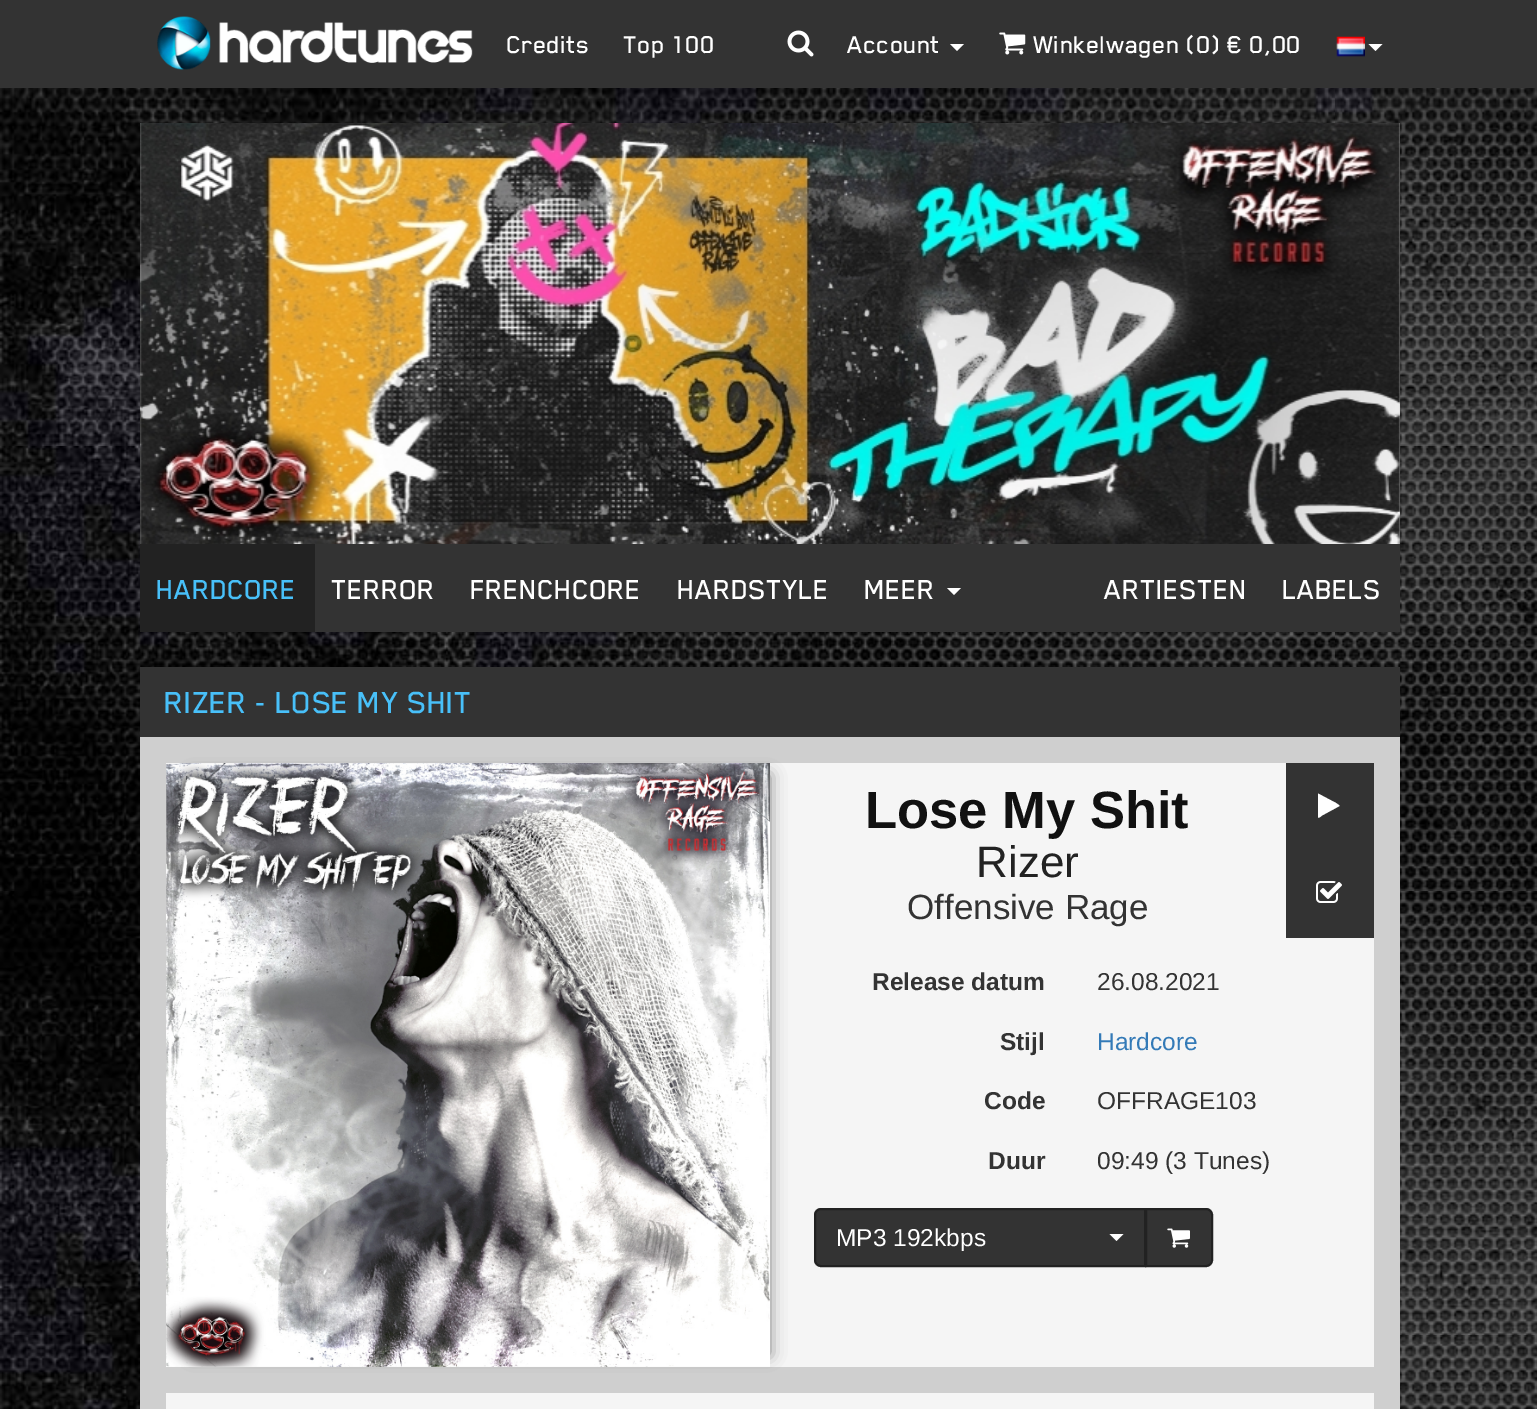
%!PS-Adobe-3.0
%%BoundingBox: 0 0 1537 1409
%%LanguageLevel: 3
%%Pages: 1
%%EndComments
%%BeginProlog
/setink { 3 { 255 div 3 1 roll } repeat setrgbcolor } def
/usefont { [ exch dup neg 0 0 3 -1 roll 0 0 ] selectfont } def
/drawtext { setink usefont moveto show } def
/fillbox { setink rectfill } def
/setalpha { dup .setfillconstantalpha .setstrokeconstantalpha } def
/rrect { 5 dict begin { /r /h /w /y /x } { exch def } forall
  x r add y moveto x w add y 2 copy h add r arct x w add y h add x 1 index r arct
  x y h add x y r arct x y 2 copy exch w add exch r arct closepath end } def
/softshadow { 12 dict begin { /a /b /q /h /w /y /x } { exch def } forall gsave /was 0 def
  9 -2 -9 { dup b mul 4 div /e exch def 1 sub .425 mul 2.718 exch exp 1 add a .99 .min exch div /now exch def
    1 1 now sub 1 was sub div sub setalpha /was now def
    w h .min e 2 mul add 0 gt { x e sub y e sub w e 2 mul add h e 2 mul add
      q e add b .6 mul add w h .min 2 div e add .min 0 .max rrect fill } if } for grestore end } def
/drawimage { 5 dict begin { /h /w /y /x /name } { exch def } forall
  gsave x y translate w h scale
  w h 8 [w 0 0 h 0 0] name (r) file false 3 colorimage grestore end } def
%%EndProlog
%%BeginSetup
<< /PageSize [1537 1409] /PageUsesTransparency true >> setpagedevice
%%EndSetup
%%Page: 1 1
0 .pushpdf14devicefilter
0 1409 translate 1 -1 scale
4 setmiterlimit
0 0 1537 1409 255 255 255 fillbox
(assets/img1.rgb) 0 88 1537 1321 drawimage
0 0 1537 88 51 51 51 fillbox
(assets/img2.rgb) 157 16 316 54 drawimage
(Credits) 507 53 /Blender-Medium 28 255 255 255 drawtext
(Top 100) 624 53 /Blender-Medium 28 255 255 255 drawtext
(assets/img3.rgb) 787 30 27 27 drawimage
(Account) 848 53 /Blender-Medium 28 255 255 255 drawtext
950 44 moveto 964 44 lineto 957 51 lineto closepath fill
(assets/img4.rgb) 999 32 27 23 drawimage
(Winkelwagen \(0\) € 0,00) 1033 53 /Blender-Medium 28 255 255 255 drawtext
(assets/img5.rgb) 1336 36 29 21 drawimage
1368.5 44 moveto 1382.5 44 lineto 1375.5 51 lineto closepath fill
(assets/img6.rgb) 140 123 1260 421 drawimage
315 544 1085 88 51 51 51 fillbox
140 544 175 88 34 34 34 fillbox
(HARDCORE) 157 599 /Blender-Medium 31.5 72 192 249 drawtext
(TERROR) 332 599 /Blender-Medium 31.5 255 255 255 drawtext
(FRENCHCORE) 471 599 /Blender-Medium 31.5 255 255 255 drawtext
(HARDSTYLE) 678 599 /Blender-Medium 31.5 255 255 255 drawtext
(MEER) 865 599 /Blender-Medium 31.5 255 255 255 drawtext
947 588 moveto 961 588 lineto 954 595 lineto closepath fill
(ARTIESTEN) 1105 599 /Blender-Medium 31.5 255 255 255 drawtext
(LABELS) 1283 599 /Blender-Medium 31.5 255 255 255 drawtext
140 667 1260 70 51 51 51 fillbox
(RIZER - LOSE MY SHIT) 165 713 /Blender-Medium 35 72 192 249 drawtext
140 737 1260 672 207 207 207 fillbox
166 763 1208 604 245 245 245 fillbox
17 17 17 setink
191 775 579 580 0 8 0.5 softshadow
(assets/img7.rgb) 166 763 604 604 drawimage
(Lose My Shit) 865 828 /LiberationSans-Bold 52.5 17 17 17 drawtext
(Rizer) 976 877 /LiberationSans-Regular 44 34 34 34 drawtext
(Offensive Rage) 907 919 /LiberationSans-Regular 35 51 51 51 drawtext
1286 763 88 175 51 51 51 fillbox
255 255 255 setink
1339.5 806 moveto 1322 815.5 lineto 1321.5 816 1318.5 818.5 1318 817.5 curveto 1318 793.5 lineto 1336 803 lineto 1339.5 805.5 lineto closepath fill
(assets/img8.rgb) 1316 881 26 22 drawimage
(Release datum) 872 990 /LiberationSans-Bold 24.5 51 51 51 drawtext
(26.08.2021) 1097 990 /LiberationSans-Regular 24.5 51 51 51 drawtext
(Stijl) 1000 1050 /LiberationSans-Bold 24.5 51 51 51 drawtext
(Hardcore) 1097 1050 /LiberationSans-Regular 24.5 51 122 183 drawtext
(Code) 984 1109 /LiberationSans-Bold 24.5 51 51 51 drawtext
(OFFRAGE103) 1097 1109 /LiberationSans-Regular 24.5 51 51 51 drawtext
(Duur) 988 1169 /LiberationSans-Bold 24.5 51 51 51 drawtext
(09:49 \(3 Tunes\)) 1097 1169 /LiberationSans-Regular 24.5 51 51 51 drawtext
821 1209 moveto 1145 1209 lineto 1145 1266 lineto 821 1266 lineto 817.5 1266 815 1263.5 815 1260 curveto 815 1215 lineto 815 1211.5 817.5 1209 821 1209 curveto closepath gsave fill grestore
34 34 34 setink
2 setlinewidth
stroke
(MP3 192kbps) 836 1246 /LiberationSans-Regular 24.5 255 255 255 drawtext
1109.5 1234 moveto 1123.5 1234 lineto 1116.5 1241 lineto closepath fill
51 51 51 setink
1146 1209 moveto 1206 1209 lineto 1209.5 1209 1212 1211.5 1212 1215 curveto 1212 1260 lineto 1212 1263.5 1209.5 1266 1206 1266 curveto 1146 1266 lineto closepath gsave fill grestore
34 34 34 setink
stroke
(assets/img9.rgb) 1167 1228 23 20 drawimage
166 1393 1208 16 245 245 245 fillbox
.poppdf14devicefilter showpage
%%EOF
